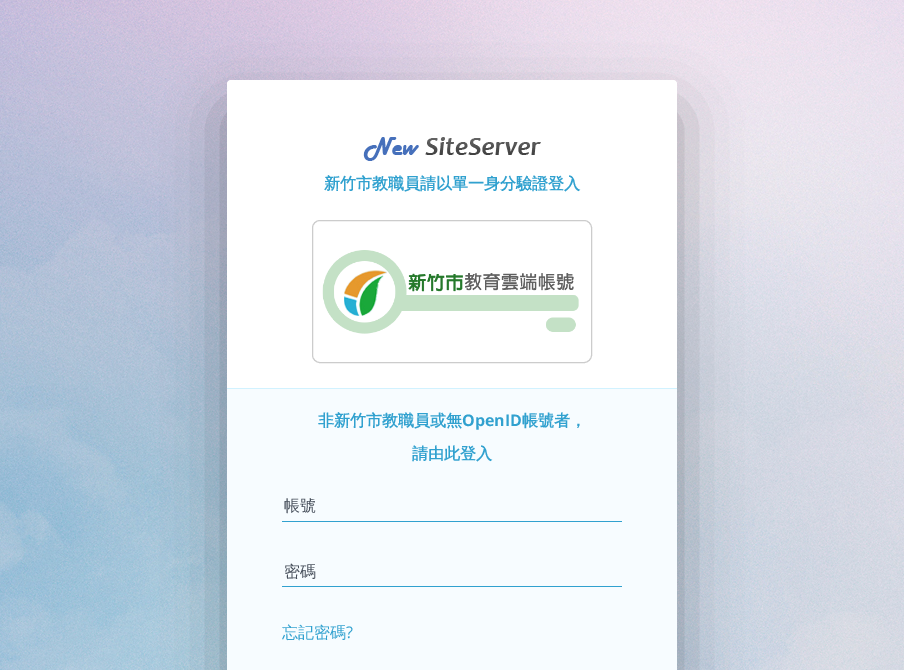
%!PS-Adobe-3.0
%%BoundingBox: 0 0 904 670
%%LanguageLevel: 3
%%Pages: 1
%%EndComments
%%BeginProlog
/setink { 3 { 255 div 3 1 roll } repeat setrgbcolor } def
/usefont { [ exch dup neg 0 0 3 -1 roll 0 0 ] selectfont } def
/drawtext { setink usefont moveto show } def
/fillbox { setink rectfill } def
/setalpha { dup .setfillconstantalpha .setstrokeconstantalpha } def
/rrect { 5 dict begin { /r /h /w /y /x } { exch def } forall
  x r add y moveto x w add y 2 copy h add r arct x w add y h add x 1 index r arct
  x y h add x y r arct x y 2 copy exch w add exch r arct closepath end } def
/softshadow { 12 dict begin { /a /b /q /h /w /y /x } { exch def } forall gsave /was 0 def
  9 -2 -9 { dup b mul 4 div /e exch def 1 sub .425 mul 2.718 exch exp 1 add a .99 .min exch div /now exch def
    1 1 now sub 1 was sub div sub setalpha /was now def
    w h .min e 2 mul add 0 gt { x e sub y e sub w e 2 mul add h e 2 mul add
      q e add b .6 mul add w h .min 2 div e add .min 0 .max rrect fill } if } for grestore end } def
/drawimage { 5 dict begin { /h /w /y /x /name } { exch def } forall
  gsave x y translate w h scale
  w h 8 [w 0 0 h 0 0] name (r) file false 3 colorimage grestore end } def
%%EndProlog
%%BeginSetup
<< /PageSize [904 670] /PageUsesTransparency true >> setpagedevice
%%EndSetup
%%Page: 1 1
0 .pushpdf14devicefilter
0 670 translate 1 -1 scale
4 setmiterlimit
0 0 904 670 255 255 255 fillbox
(assets/img1.rgb) 0 0 904 670 drawimage
0 0 0 setink
227 110 450 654 4 30 0.3 softshadow
255 255 255 setink
227 80 450 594 4 rrect fill
(assets/img2.rgb) 363 137 178 24 drawimage
(新竹市教職員請以單一身分驗證登入) 324 189 /WenQuanYiZenHei-Bold 16 49 161 207 drawtext
204 204 204 setink
312.5 220.5 279 142 7.5 rrect stroke
(assets/img3.rgb) 322 250 257 84 drawimage
227 389 450 281 247 252 255 fillbox
227 388 450 1 209 242 255 fillbox
(非新竹市教職員或無) 318 426 /WenQuanYiZenHei-Bold 16 49 161 207 drawtext
(OpenID) 462 426 /OpenSans-Bold 16 49 161 207 drawtext
(帳號者，) 522 426 /WenQuanYiZenHei-Bold 16 49 161 207 drawtext
(請由此登入) 412 459 /WenQuanYiZenHei-Bold 16 49 161 207 drawtext
(帳號) 284 511 /WenQuanYiZenHei-Medium 16 71 79 91 drawtext
282 521 340 1 49 161 207 fillbox
(密碼) 284 577 /WenQuanYiZenHei-Medium 16 71 79 91 drawtext
282 586 340 1 49 161 207 fillbox
(忘記密碼) 282 638 /WenQuanYiZenHei-Medium 16 49 161 207 drawtext
(?) 346 638 /OpenSans-Regular 16 49 161 207 drawtext
.poppdf14devicefilter showpage
%%EOF
